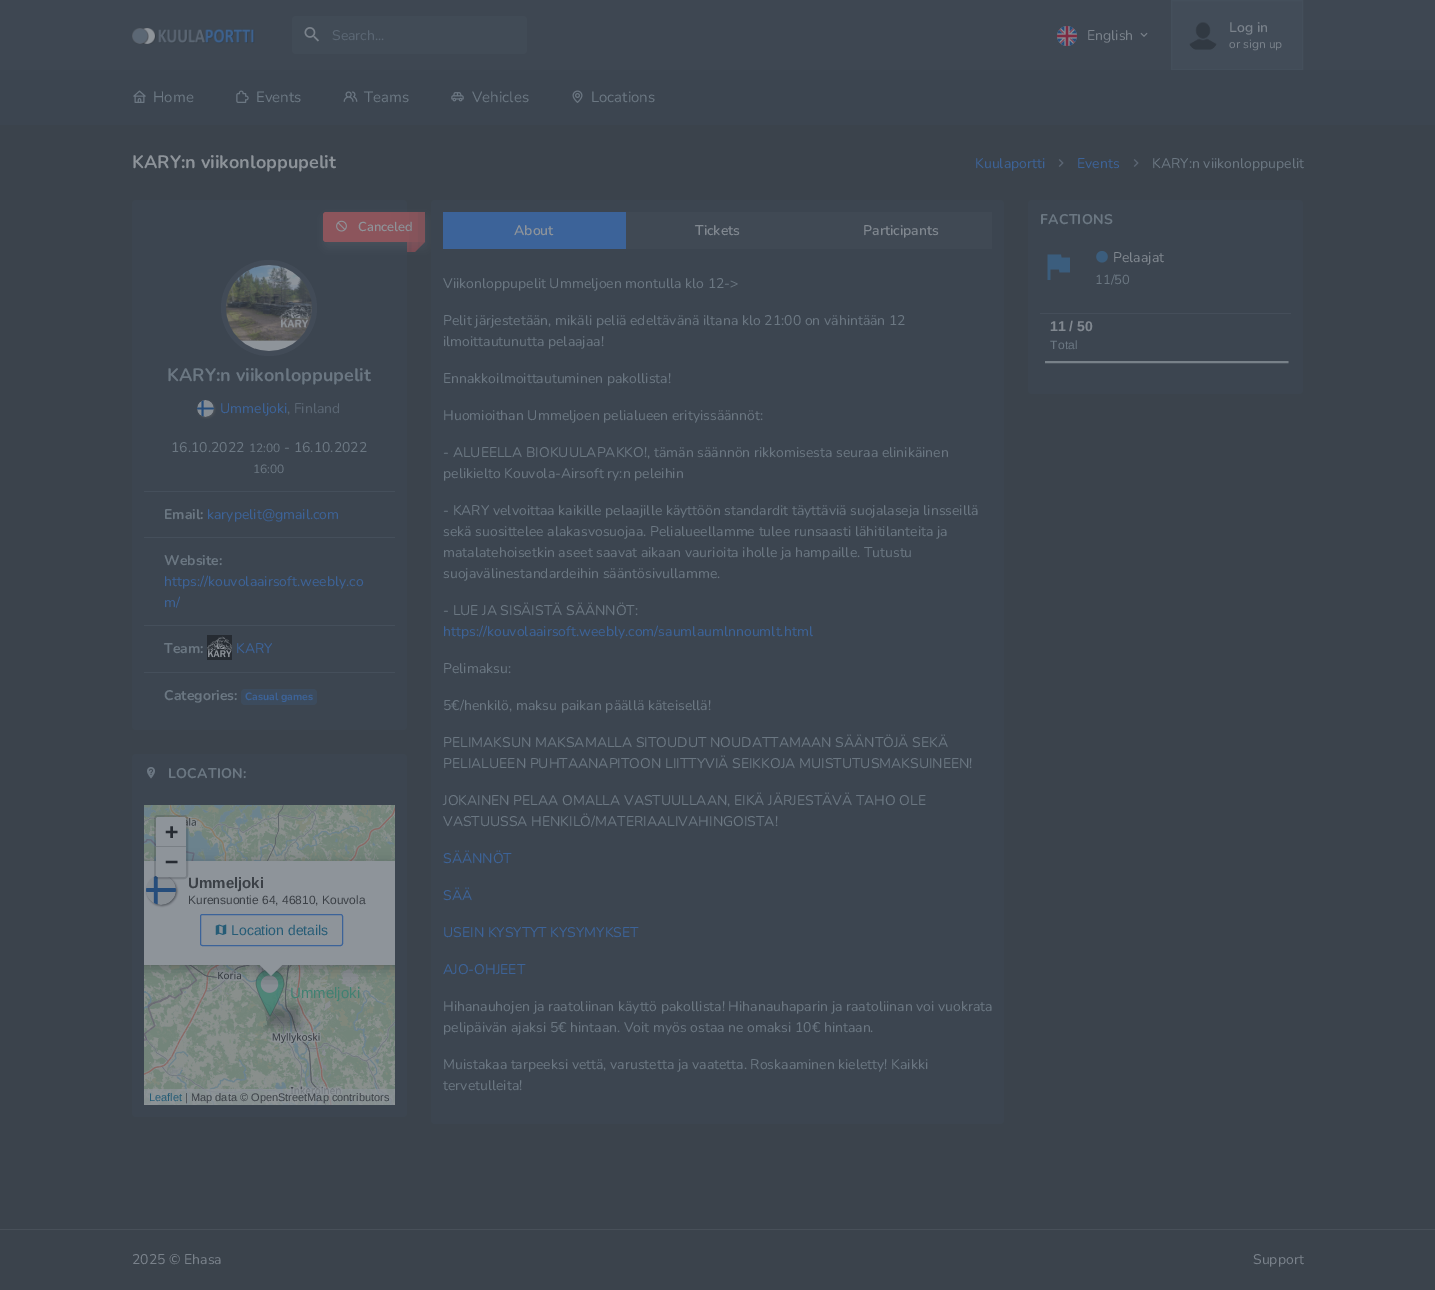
%!PS-Adobe-3.0
%%BoundingBox: 0 0 1435 1290
%%LanguageLevel: 3
%%Pages: 1
%%EndComments
%%BeginProlog
/setink { 3 { 255 div 3 1 roll } repeat setrgbcolor } def
/usefont { [ exch dup neg 0 0 3 -1 roll 0 0 ] selectfont } def
/drawtext { setink usefont moveto show } def
/fillbox { setink rectfill } def
/setalpha { dup .setfillconstantalpha .setstrokeconstantalpha } def
/disc { newpath 0 360 arc closepath } def
/rrect { 5 dict begin { /r /h /w /y /x } { exch def } forall
  x r add y moveto x w add y 2 copy h add r arct x w add y h add x 1 index r arct
  x y h add x y r arct x y 2 copy exch w add exch r arct closepath end } def
/softshadow { 12 dict begin { /a /b /q /h /w /y /x } { exch def } forall gsave /was 0 def
  9 -2 -9 { dup b mul 4 div /e exch def 1 sub .425 mul 2.718 exch exp 1 add a .99 .min exch div /now exch def
    1 1 now sub 1 was sub div sub setalpha /was now def
    w h .min e 2 mul add 0 gt { x e sub y e sub w e 2 mul add h e 2 mul add
      q e add b .6 mul add w h .min 2 div e add .min 0 .max rrect fill } if } for grestore end } def
/drawimage { 5 dict begin { /h /w /y /x /name } { exch def } forall
  gsave x y translate w h scale
  w h 8 [w 0 0 h 0 0] name (r) file false 3 colorimage grestore end } def
%%EndProlog
%%BeginSetup
<< /PageSize [1435 1290] /PageUsesTransparency true >> setpagedevice
%%EndSetup
%%Page: 1 1
0 .pushpdf14devicefilter
0 1290 translate 1 -1 scale
4 setmiterlimit
0 0 1435 1290 59 67 76 fillbox
0 0 1435 70 62 71 82 fillbox
(assets/img1.rgb) 132 28 123 16 drawimage
65 75 86 setink
292 16 235 38 4 rrect fill
(assets/img2.rgb) 304 27 15 15 drawimage
(Search...) 332 40 /Nunito-Regular 14 91 103 116 drawtext
(assets/img3.rgb) 1057 26 20 20 drawimage
(English) 1087 40 /Nunito-Regular 14 122 130 139 drawtext
(assets/img4.rgb) 1140 32 8 5 drawimage
66 76 88 setink
1171.5 0.5 moveto 1302.5 0.5 lineto 1302.5 69.5 lineto 1171.5 69.5 lineto closepath gsave fill grestore
68 79 91 setink
stroke
(assets/img5.rgb) 1189 22 28 28 drawimage
(Log in) 1229 32 /Nunito-SemiBold 14 122 130 139 drawtext
(or sign up) 1229 48 /Nunito-Regular 12 122 130 139 drawtext
0 70 1435 55 60 69 80 fillbox
(assets/img6.rgb) 133 90 13 13 drawimage
(Home) 153 102 /Nunito-Regular 15 107 119 130 drawtext
(assets/img7.rgb) 236 90 13 13 drawimage
(Events) 256 102 /Nunito-Regular 15 107 119 130 drawtext
(assets/img8.rgb) 343 91 15 11 drawimage
(Teams) 364 102 /Nunito-Regular 15 107 119 130 drawtext
(assets/img9.rgb) 451 92 13 10 drawimage
(Vehicles) 472 102 /Nunito-Regular 15 107 119 130 drawtext
(assets/img10.rgb) 572 90 11 13 drawimage
(Locations) 591 102 /Nunito-Regular 15 107 119 130 drawtext
(KARY:n viikonloppupelit) 132 168 /Nunito-Bold 18 142 148 154 drawtext
(Kuulaportti) 975 168 /Nunito-Regular 14 60 99 153 drawtext
(assets/img11.rgb) 1058 159 6 8 drawimage
(Events) 1077 168 /Nunito-Regular 14 60 99 153 drawtext
(assets/img11.rgb) 1133 159 6 8 drawimage
(KARY:n viikonloppupelit) 1152 168 /Nunito-Regular 14 107 119 130 drawtext
140 75 82 setink
323 242 moveto 425 242 lineto 415 252 lineto 333 252 lineto closepath fill
58 66 77 setink
132 200 275 530 4 17.5 0.5 softshadow
60 69 80 setink
132 200 275 530 4 rrect fill
66 75 87 setink
269 308 48 disc fill
137 142 148 setink
325 217 102 30 3 5 0.15 softshadow
140 85 92 setink
326 212 moveto 425 212 lineto 425 242 lineto 326 242 lineto 324.5 242 323 240.5 323 239 curveto 323 215 lineto 323 213.5 324.5 212 326 212 curveto closepath fill
(assets/img12.rgb) 336 220 11 12 drawimage
(Canceled) 358 231 /Nunito-SemiBold 13 142 148 154 drawtext
(assets/img13.rgb) 226 265 86 86 drawimage
(KARY:n viikonloppupelit) 167 381 /Nunito-Bold 18 107 119 130 drawtext
(assets/img14.rgb) 197 400 19 19 drawimage
(Ummeljoki) 220 413 /Nunito-Regular 14 60 99 153 drawtext
(, Finland) 287 413 /Nunito-Regular 14 91 103 116 drawtext
144 491 251 1 69 79 91 fillbox
(16.10.2022) 171 452 /Nunito-Regular 14 107 119 130 drawtext
(12:00) 249 452 /Nunito-Regular 12 107 119 130 drawtext
(- 16.10.2022) 284 452 /Nunito-Regular 14 107 119 130 drawtext
(16:00) 253 473 /Nunito-Regular 12 107 119 130 drawtext
144 537 251 1 69 79 91 fillbox
(Email:) 164 519 /Nunito-Bold 14 107 119 130 drawtext
(karypelit@gmail.com) 207 519 /Nunito-Regular 14 60 99 153 drawtext
144 625 251 1 69 79 91 fillbox
(Website:) 164 565 /Nunito-Bold 14 107 119 130 drawtext
(https://kouvolaairsoft.weebly.co) 164 586 /Nunito-Regular 14 60 99 153 drawtext
(m/) 164 607 /Nunito-Regular 14 60 99 153 drawtext
144 672 251 1 69 79 91 fillbox
(Team:) 164 653 /Nunito-Bold 14 107 119 130 drawtext
(assets/img15.rgb) 207 635 25 25 drawimage
(KARY) 236 653 /Nunito-Regular 14 60 99 153 drawtext
(Categories:) 164 700 /Nunito-Bold 14 107 119 130 drawtext
60 75 93 setink
241 689 76 16 4 rrect fill
(Casual games) 245 700 /Nunito-Bold 10.5 60 99 153 drawtext
60 69 80 setink
132 754 275 363 4 rrect fill
(assets/img16.rgb) 147 767 8 12 drawimage
/Nunito-Bold 14 usefont
107 119 130 setink
168 778 moveto 0.25 0 (LOCATION:) ashow
(assets/img17.rgb) 144 805 128 56 drawimage
58 66 77 setink
431 200 573 924 4 17.5 0.5 softshadow
(assets/img18.rgb) 272 805 123 56 drawimage
(assets/img19.rgb) 144 965 128 140 drawimage
(assets/img20.rgb) 272 965 123 140 drawimage
gsave
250 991 moveto 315 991 lineto 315 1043 lineto 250 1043 lineto closepath 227 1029.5 moveto 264 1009 lineto 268 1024.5 lineto 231 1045.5 lineto closepath eoclip newpath
38 43 50 setink
266 1007 33 20 0 5 0.4 softshadow
grestore
(assets/img23.rgb) 255 970 30 47 drawimage
(assets/img24.rgb) 260 975 19 18 drawimage
60 69 80 setink
431 200 573 924 4 rrect fill
gsave
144 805 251 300 rectclip
38 43 50 setink
126 864 291 104 12 7 0.4 softshadow
grestore
144 861 251 104 142 148 154 fillbox
(assets/img21.rgb) 145 875 34 33 drawimage
0.2 setalpha
38 43 50 setink
2 setlinewidth
155 816 32 62 3 rrect stroke
1 setalpha
142 148 154 setink
158 817 moveto 184 817 lineto 185 817 186 818 186 819 curveto 186 847 lineto 156 847 lineto 156 819 lineto 156 818 157 817 158 817 curveto closepath fill
156 846 30 1 121 127 133 fillbox
(+) 165 839 /DejaVuSansMono-Bold 22 38 43 50 drawtext
142 148 154 setink
156 847 moveto 186 847 lineto 186 875 lineto 186 876 185 877 184 877 curveto 158 877 lineto 157 877 156 876 156 875 curveto closepath fill
(−) 165 869 /DejaVuSansMono-Bold 22 38 43 50 drawtext
0.7 setalpha
144 1089 251 16 142 148 154 fillbox
1 setalpha
(Leaflet) 149 1101 /LiberationSans-Regular 11 38 92 118 drawtext
(| Map data © OpenStreetMap contributors) 185 1101 /LiberationSans-Regular 11 59 64 70 drawtext
(Ummeljoki) 188 888 /LiberationSans-Bold 15 59 64 70 drawtext
(Kurensuontie 64, 46810, Kouvola) 188 904 /LiberationSans-Regular 12 59 64 70 drawtext
60 99 153 setink
1 setlinewidth
200.5 914.5 142 31 2 rrect stroke
(assets/img22.rgb) 215 924 12 11 drawimage
(Location details) 231 935 /LiberationSans-Regular 14 38 92 118 drawtext
gsave
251 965 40 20 rectclip
38 43 50 setink
263 958 17 17 0 7 0.4 softshadow
grestore
gsave
251 965 40 20 rectclip
142 148 154 setink
271 952 moveto 283 964 lineto 271 976 lineto 259 964 lineto closepath fill
grestore
(Ummeljoki) 290 998 /LiberationSans-Regular 15 65 129 114 drawtext
626 212 366 37 64 73 84 fillbox
443 212 183 37 60 99 153 fillbox
(About) 514 235 /Nunito-SemiBold 14 142 148 154 drawtext
(Tickets) 695 235 /Nunito-SemiBold 14 129 136 144 drawtext
(Participants) 863 235 /Nunito-SemiBold 14 129 136 144 drawtext
(Viikonloppupelit Ummeljoen montulla klo 12->) 443 288 /Nunito-Regular 14 107 119 130 drawtext
(Pelit järjestetään, mikäli peliä edeltävänä iltana klo 21:00 on vähintään 12) 443 325 /Nunito-Regular 14 107 119 130 drawtext
(ilmoittautunutta pelaajaa!) 443 346 /Nunito-Regular 14 107 119 130 drawtext
(Ennakkoilmoittautuminen pakollista!) 443 383 /Nunito-Regular 14 107 119 130 drawtext
(Huomioithan Ummeljoen pelialueen erityissäännöt:) 443 420 /Nunito-Regular 14 107 119 130 drawtext
(- ALUEELLA BIOKUULAPAKKO!, tämän säännön rikkomisesta seuraa elinikäinen) 443 457 /Nunito-Regular 14 107 119 130 drawtext
(pelikielto Kouvola-Airsoft ry:n peleihin) 443 478 /Nunito-Regular 14 107 119 130 drawtext
(- KARY velvoittaa kaikille pelaajille käyttöön standardit täyttäviä suojalaseja linsseillä) 443 515 /Nunito-Regular 14 107 119 130 drawtext
(sekä suosittelee alakasvosuojaa. Pelialueellamme tulee runsaasti lähitilanteita ja) 443 536 /Nunito-Regular 14 107 119 130 drawtext
(matalatehoisetkin aseet saavat aikaan vaurioita iholle ja hampaille. Tutustu) 443 557 /Nunito-Regular 14 107 119 130 drawtext
(suojavälinestandardeihin sääntösivullamme.) 443 578 /Nunito-Regular 14 107 119 130 drawtext
(- LUE JA SISÄISTÄ SÄÄNNÖT:) 443 615 /Nunito-Regular 14 107 119 130 drawtext
(https://kouvolaairsoft.weebly.com/saumlaumlnnoumlt.html) 443 636 /Nunito-Regular 14 60 99 153 drawtext
(Pelimaksu:) 443 673 /Nunito-Regular 14 107 119 130 drawtext
(5€/henkilö, maksu paikan päällä käteisellä!) 443 710 /Nunito-Regular 14 107 119 130 drawtext
(PELIMAKSUN MAKSAMALLA SITOUDUT NOUDATTAMAAN SÄÄNTÖJÄ SEKÄ) 443 747 /Nunito-Regular 14 107 119 130 drawtext
(PELIALUEEN PUHTAANAPITOON LIITTYVIÄ SEIKKOJA MUISTUTUSMAKSUINEEN!) 443 768 /Nunito-Regular 14 107 119 130 drawtext
(JOKAINEN PELAA OMALLA VASTUULLAAN, EIKÄ JÄRJESTÄVÄ TAHO OLE) 443 805 /Nunito-Regular 14 107 119 130 drawtext
(VASTUUSSA HENKILÖ/MATERIAALIVAHINGOISTA!) 443 826 /Nunito-Regular 14 107 119 130 drawtext
(SÄÄNNÖT) 443 863 /Nunito-Regular 14 60 99 153 drawtext
(SÄÄ) 443 900 /Nunito-Regular 14 60 99 153 drawtext
(USEIN KYSYTYT KYSYMYKSET) 443 937 /Nunito-Regular 14 60 99 153 drawtext
(AJO-OHJEET) 443 974 /Nunito-Regular 14 60 99 153 drawtext
(Hihanauhojen ja raatoliinan käyttö pakollista! Hihanauhaparin ja raatoliinan voi vuokrata) 443 1011 /Nunito-Regular 14 107 119 130 drawtext
(pelipäivän ajaksi 5€ hintaan. Voit myös ostaa ne omaksi 10€ hintaan.) 443 1032 /Nunito-Regular 14 107 119 130 drawtext
(Muistakaa tarpeeksi vettä, varustetta ja vaatetta. Roskaaminen kieletty! Kaikki) 443 1069 /Nunito-Regular 14 107 119 130 drawtext
(tervetulleita!) 443 1090 /Nunito-Regular 14 107 119 130 drawtext
60 69 80 setink
1028 200 275 194 4 rrect fill
/Nunito-Bold 14 usefont
107 119 130 setink
1040 224 moveto 0.25 0 (FACTIONS) ashow
1040 313 251 1 69 78 90 fillbox
(assets/img25.rgb) 1047 254 23 26 drawimage
(11/50) 1095 284 /Nunito-Regular 13 107 119 130 drawtext
(assets/img26.rgb) 1096 251 12 12 drawimage
(Pelaajat) 1113 262 /Nunito-Regular 14 129 136 144 drawtext
(11 / 50) 1050 331 /LiberationSans-Bold 14 129 136 144 drawtext
/LiberationSans-Regular 12 usefont
107 119 130 setink
1050 349 moveto 0.25 0 (Total) ashow
120 129 137 setink
2 setlinewidth
1045 362 moveto 1288.5 362 lineto 1286 362 lineto stroke
0 1229 1435 1 72 80 89 fillbox
(2025 © Ehasa) 132 1264 /Nunito-Regular 14 122 130 139 drawtext
(Support) 1253 1264 /Nunito-Regular 14 122 130 139 drawtext
.poppdf14devicefilter showpage
%%EOF
